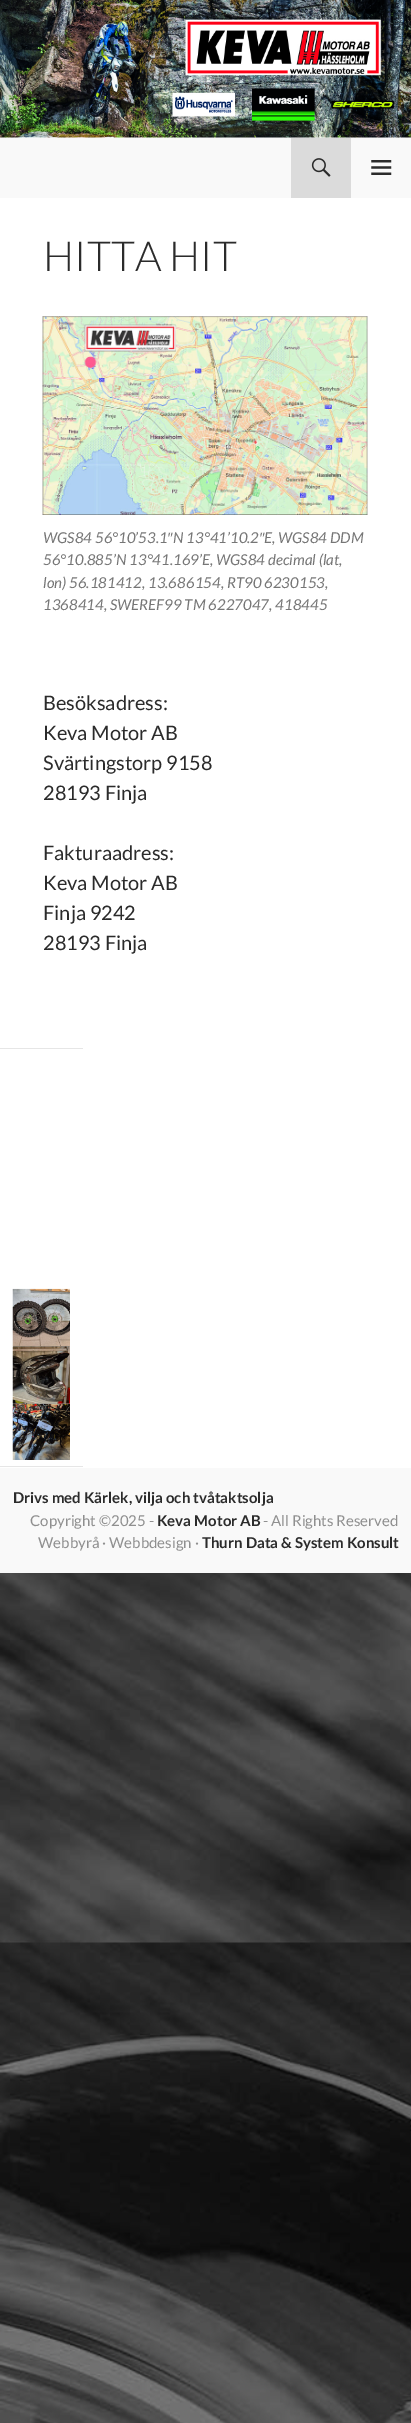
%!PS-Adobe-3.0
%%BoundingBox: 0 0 411 2423
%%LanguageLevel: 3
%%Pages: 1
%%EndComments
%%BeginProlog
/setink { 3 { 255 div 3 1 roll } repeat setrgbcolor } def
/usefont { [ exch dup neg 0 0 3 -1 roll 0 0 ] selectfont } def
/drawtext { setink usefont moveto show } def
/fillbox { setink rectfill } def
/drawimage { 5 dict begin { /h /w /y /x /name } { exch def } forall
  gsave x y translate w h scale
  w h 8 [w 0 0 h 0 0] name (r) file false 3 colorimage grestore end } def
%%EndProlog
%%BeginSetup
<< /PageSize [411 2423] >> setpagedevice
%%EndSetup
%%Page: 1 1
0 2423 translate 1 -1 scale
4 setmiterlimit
0 0 411 2423 255 255 255 fillbox
(assets/img1.rgb) 0 1573 411 850 drawimage
(assets/img2.rgb) 0 0 411 138 drawimage
0 138 411 60 249 249 249 fillbox
291 138 60 60 219 219 219 fillbox
(assets/img3.rgb) 311 158 20 19 drawimage
(assets/img4.rgb) 371 160 21 15 drawimage
(HITTA HIT) 43 271 /Lato-Light 41.25 43 43 43 drawtext
(assets/img5.rgb) 42 316 326 199 drawimage
(WGS84 56°10’53.1) 43 543 /Lato-Italic 15 118 118 118 drawtext
(″) 167 543 /LiberationSans-Italic 15 118 118 118 drawtext
(N 13°41’10.2) 173 543 /Lato-Italic 15 118 118 118 drawtext
(″) 259 543 /LiberationSans-Italic 15 118 118 118 drawtext
(E, WGS84 DDM) 264 543 /Lato-Italic 15 118 118 118 drawtext
(56°10.885’N 13°41.169’E, WGS84 decimal \(lat,) 43 565 /Lato-Italic 15 118 118 118 drawtext
(lon\) 56.181412, 13.686154, RT90 6230153,) 43 588 /Lato-Italic 15 118 118 118 drawtext
(1368414, SWEREF99 TM 6227047, 418445) 43 610 /Lato-Italic 15 118 118 118 drawtext
(Besöksadress:) 43 710 /Lato-Regular 20 43 43 43 drawtext
(Keva Motor AB) 43 740 /Lato-Regular 20 43 43 43 drawtext
(Svärtingstorp 9158) 43 770 /Lato-Regular 20 43 43 43 drawtext
(28193 Finja) 43 800 /Lato-Regular 20 43 43 43 drawtext
(Fakturaadress:) 43 860 /Lato-Regular 20 43 43 43 drawtext
(Keva Motor AB) 43 890 /Lato-Regular 20 43 43 43 drawtext
(Finja 9242) 43 920 /Lato-Regular 20 43 43 43 drawtext
(28193 Finja) 43 950 /Lato-Regular 20 43 43 43 drawtext
0 1048 83 1 230 230 230 fillbox
0 1466 83 1 230 230 230 fillbox
(assets/img6.rgb) 12 1288 58 58 drawimage
13 1346 57 58 153 153 153 fillbox
(assets/img7.rgb) 12 1346 58 58 drawimage
(assets/img8.rgb) 12 1403 58 57 drawimage
0 1468 411 105 249 249 249 fillbox
(Drivs med Kärlek, vilja och tvåtaktsolja) 13 1503 /Lato-Bold 15 43 43 43 drawtext
(Copyright ©2025 -) 30 1526 /Lato-Regular 15 143 143 143 drawtext
(Keva Motor AB) 157 1526 /Lato-Bold 15 43 43 43 drawtext
(- All Rights Reserved) 263 1526 /Lato-Regular 15 143 143 143 drawtext
(Webbyrå · Webbdesign ·) 38 1548 /Lato-Regular 15 143 143 143 drawtext
(Thurn Data & System Konsult) 202 1548 /Lato-Bold 15 43 43 43 drawtext
showpage
%%EOF
